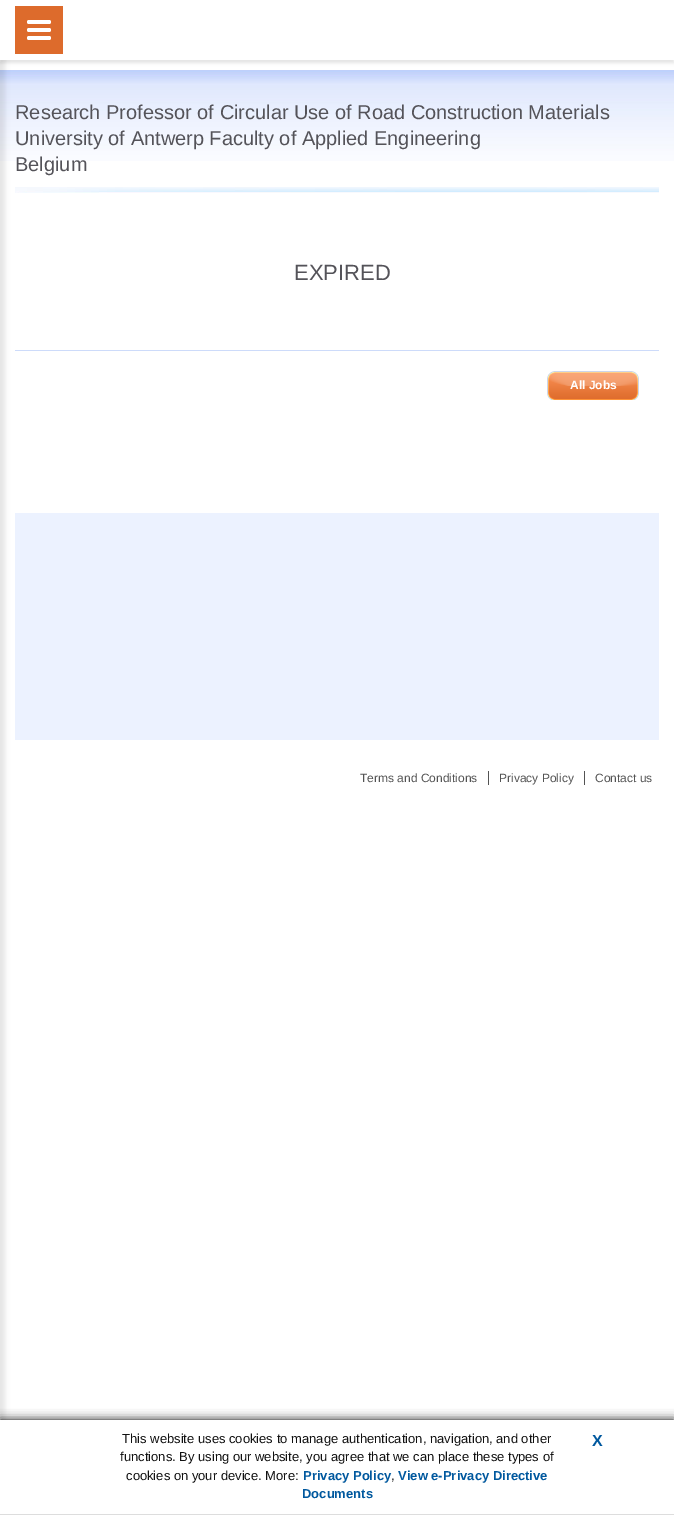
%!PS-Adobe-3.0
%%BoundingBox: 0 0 674 1515
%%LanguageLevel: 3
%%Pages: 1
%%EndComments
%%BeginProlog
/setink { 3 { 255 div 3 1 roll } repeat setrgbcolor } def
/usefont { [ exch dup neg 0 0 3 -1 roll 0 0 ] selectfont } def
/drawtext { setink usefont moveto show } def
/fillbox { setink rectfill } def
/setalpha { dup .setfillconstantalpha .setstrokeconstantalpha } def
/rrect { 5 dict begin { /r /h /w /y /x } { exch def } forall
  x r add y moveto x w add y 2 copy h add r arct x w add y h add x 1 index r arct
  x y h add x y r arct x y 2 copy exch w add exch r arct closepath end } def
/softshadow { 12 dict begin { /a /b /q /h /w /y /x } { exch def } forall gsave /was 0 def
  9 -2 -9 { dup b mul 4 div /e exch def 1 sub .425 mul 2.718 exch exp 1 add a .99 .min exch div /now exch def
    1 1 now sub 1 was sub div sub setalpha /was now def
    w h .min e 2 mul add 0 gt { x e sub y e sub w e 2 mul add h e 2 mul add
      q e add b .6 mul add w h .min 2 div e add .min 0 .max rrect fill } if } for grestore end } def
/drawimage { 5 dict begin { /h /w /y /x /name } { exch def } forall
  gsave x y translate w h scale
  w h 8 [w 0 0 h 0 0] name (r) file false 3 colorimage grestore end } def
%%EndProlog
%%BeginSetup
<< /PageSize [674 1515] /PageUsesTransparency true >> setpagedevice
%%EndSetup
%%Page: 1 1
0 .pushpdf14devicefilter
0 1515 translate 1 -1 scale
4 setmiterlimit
0 0 674 1515 255 255 255 fillbox
(assets/img1.rgb) 0 70 674 91 drawimage
0 0 0 setink
-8 -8 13 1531 0 2.5 0.1 softshadow
0 3 674 60 0 1.5 0.1 softshadow
0 0 674 60 255 255 255 fillbox
15 6 48 48 221 107 44 fillbox
255 255 255 setink
27 28 24 4 2 rrect fill
27 20 24 4 2 rrect fill
27 36 24 4 2 rrect fill
(Research Professor of Circular Use of Road Construction Materials) 15 119 /LiberationSans-Regular 20 84 83 89 drawtext
(University of Antwerp Faculty of Applied Engineering) 15 145 /LiberationSans-Regular 20 84 83 89 drawtext
(Belgium) 15 171 /LiberationSans-Regular 20 84 83 89 drawtext
(assets/img2.rgb) 15 187 644 6 drawimage
15 350 644 1 205 219 250 fillbox
(EXPIRED) 294 280 /LiberationSans-Regular 22 84 83 89 drawtext
(assets/img3.rgb) 547 371 92 29 drawimage
(All Jobs) 570 389 /LiberationSans-Bold 12 255 255 255 drawtext
15 513 644 227 236 242 255 fillbox
(Terms and Conditions) 360 782 /LiberationSans-Regular 12 83 83 83 drawtext
(Privacy Policy) 499 782 /LiberationSans-Regular 12 83 83 83 drawtext
488 771 1 14 83 83 83 fillbox
(Contact us) 595 782 /LiberationSans-Regular 12 83 83 83 drawtext
584 771 1 14 83 83 83 fillbox
0 0 0 setink
0 1420 674 95 0 5 1 softshadow
0 1420 674 94 255 255 255 fillbox
0 1514 674 1 221 221 221 fillbox
(This website uses cookies to manage authentication, navigation, and other) 122 1443 /LiberationSans-Regular 13 17 17 17 drawtext
(X) 592 1446 /LiberationSans-Bold 16 0 88 158 drawtext
(functions. By using our website, you agree that we can place these types of) 120 1461 /LiberationSans-Regular 13 17 17 17 drawtext
(cookies on your device. More:) 126 1480 /LiberationSans-Regular 13 17 17 17 drawtext
(Privacy Policy) 303 1480 /LiberationSans-Bold 13 0 88 158 drawtext
(,) 391 1480 /LiberationSans-Regular 13 17 17 17 drawtext
(View e-Privacy Directive) 398 1480 /LiberationSans-Bold 13 0 88 158 drawtext
(Documents) 302 1498 /LiberationSans-Bold 13 0 88 158 drawtext
.poppdf14devicefilter showpage
%%EOF
